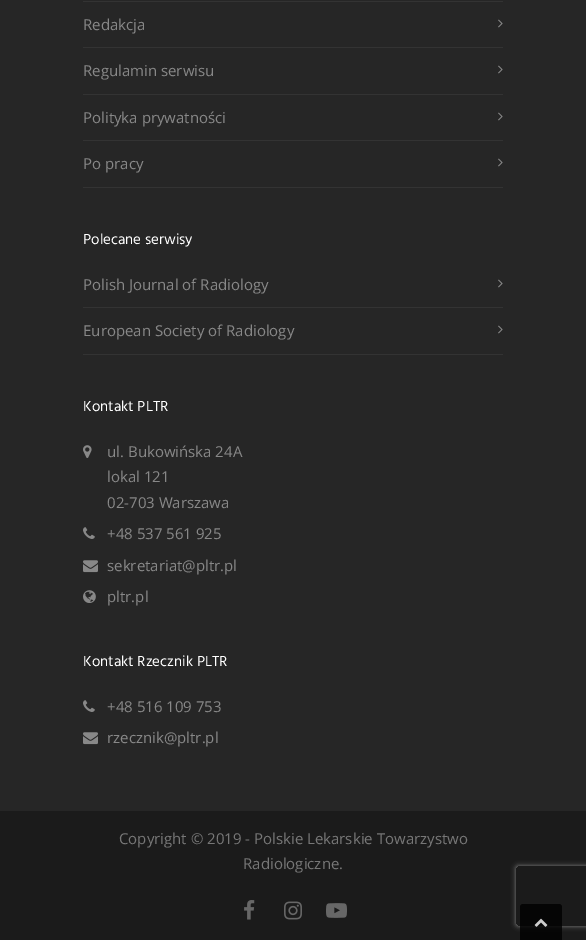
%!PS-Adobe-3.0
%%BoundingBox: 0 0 586 940
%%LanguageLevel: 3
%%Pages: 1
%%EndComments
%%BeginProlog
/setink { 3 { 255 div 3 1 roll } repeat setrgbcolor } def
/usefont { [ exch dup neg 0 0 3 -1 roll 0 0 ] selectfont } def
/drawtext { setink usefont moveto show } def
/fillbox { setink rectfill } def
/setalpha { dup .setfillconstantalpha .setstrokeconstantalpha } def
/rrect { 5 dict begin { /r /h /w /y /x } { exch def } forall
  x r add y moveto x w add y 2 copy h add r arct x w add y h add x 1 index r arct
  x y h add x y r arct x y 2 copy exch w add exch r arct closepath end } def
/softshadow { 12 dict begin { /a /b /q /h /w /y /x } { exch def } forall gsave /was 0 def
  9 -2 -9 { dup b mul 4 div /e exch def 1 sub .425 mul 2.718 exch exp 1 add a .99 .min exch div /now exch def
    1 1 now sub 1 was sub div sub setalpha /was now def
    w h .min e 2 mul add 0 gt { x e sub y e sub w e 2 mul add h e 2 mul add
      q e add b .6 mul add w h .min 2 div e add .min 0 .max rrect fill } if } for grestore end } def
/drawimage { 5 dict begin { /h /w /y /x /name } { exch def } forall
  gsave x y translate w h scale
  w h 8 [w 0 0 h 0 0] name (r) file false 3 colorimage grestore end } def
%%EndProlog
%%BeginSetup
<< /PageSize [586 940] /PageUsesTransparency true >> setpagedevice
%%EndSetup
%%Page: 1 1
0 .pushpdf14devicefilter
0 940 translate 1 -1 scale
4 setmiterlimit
0 0 586 940 38 38 38 fillbox
83 1 420 1 51 51 51 fillbox
83 47 420 1 51 51 51 fillbox
(Redakcja) 83 30 /OpenSans-Regular 15 136 136 136 drawtext
(assets/img1.rgb) 498 19 5 9 drawimage
83 94 420 1 51 51 51 fillbox
(Regulamin serwisu) 83 76 /OpenSans-Regular 15 136 136 136 drawtext
(assets/img1.rgb) 498 65 5 9 drawimage
83 140 420 1 51 51 51 fillbox
(Polityka prywatności) 83 123 /OpenSans-Regular 15 136 136 136 drawtext
(assets/img1.rgb) 498 112 5 9 drawimage
83 187 420 1 51 51 51 fillbox
(Po pracy) 83 169 /OpenSans-Regular 15 136 136 136 drawtext
(assets/img1.rgb) 498 158 5 9 drawimage
(Polecane serwisy) 83 244 /Hind-Regular 15 255 255 255 drawtext
83 307 420 1 51 51 51 fillbox
(Polish Journal of Radiology) 83 290 /OpenSans-Regular 15 136 136 136 drawtext
(assets/img1.rgb) 498 279 5 9 drawimage
83 354 420 1 51 51 51 fillbox
(European Society of Radiology) 83 336 /OpenSans-Regular 15 136 136 136 drawtext
(assets/img1.rgb) 498 325 5 9 drawimage
(Kontakt PLTR) 83 411 /Hind-Regular 15 255 255 255 drawtext
(assets/img2.rgb) 83 445 9 13 drawimage
(ul. Bukowińska 24A) 107 457 /OpenSans-Regular 15 136 136 136 drawtext
(lokal 121) 107 482 /OpenSans-Regular 15 136 136 136 drawtext
(02-703 Warszawa) 107 508 /OpenSans-Regular 15 136 136 136 drawtext
(assets/img3.rgb) 83 527 12 12 drawimage
(+48 537 561 925) 107 539 /OpenSans-Regular 15 136 136 136 drawtext
(assets/img4.rgb) 83 560 15 13 drawimage
(sekretariat@pltr.pl) 107 571 /OpenSans-Regular 15 136 136 136 drawtext
(assets/img5.rgb) 83 590 13 13 drawimage
(pltr.pl) 107 602 /OpenSans-Regular 15 136 136 136 drawtext
(Kontakt Rzecznik PLTR) 83 666 /Hind-Regular 15 255 255 255 drawtext
(assets/img3.rgb) 83 700 12 12 drawimage
(+48 516 109 753) 107 712 /OpenSans-Regular 15 136 136 136 drawtext
(assets/img4.rgb) 83 732 15 13 drawimage
(rzecznik@pltr.pl) 107 743 /OpenSans-Regular 15 136 136 136 drawtext
0 811 586 129 27 27 27 fillbox
(Copyright © 2019 - Polskie Lekarskie Towarzystwo) 119 844 /OpenSans-Regular 15 119 119 119 drawtext
(Radiologiczne.) 243 869 /OpenSans-Regular 15 119 119 119 drawtext
(assets/img6.rgb) 244 900 11 20 drawimage
(assets/img7.rgb) 284 901 18 19 drawimage
(assets/img8.rgb) 326 903 21 15 drawimage
gsave
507 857 moveto 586 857 lineto 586 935 lineto 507 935 lineto closepath 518 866 moveto 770 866 lineto 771 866 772 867 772 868 curveto 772 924 lineto 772 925 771 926 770 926 curveto 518 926 lineto 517 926 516 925 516 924 curveto 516 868 lineto 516 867 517 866 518 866 curveto closepath eoclip newpath
128 128 128 setink
516 866 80 60 2 2.5 1 softshadow
grestore
0.8 setalpha
0 0 0 setink
523 904 moveto 559 904 lineto 560.5 904 562 905.5 562 907 curveto 562 940 lineto 520 940 lineto 520 907 lineto 520 905.5 521.5 904 523 904 curveto closepath fill
1 setalpha
(assets/img9.rgb) 534 918 14 9 drawimage
.poppdf14devicefilter showpage
%%EOF
